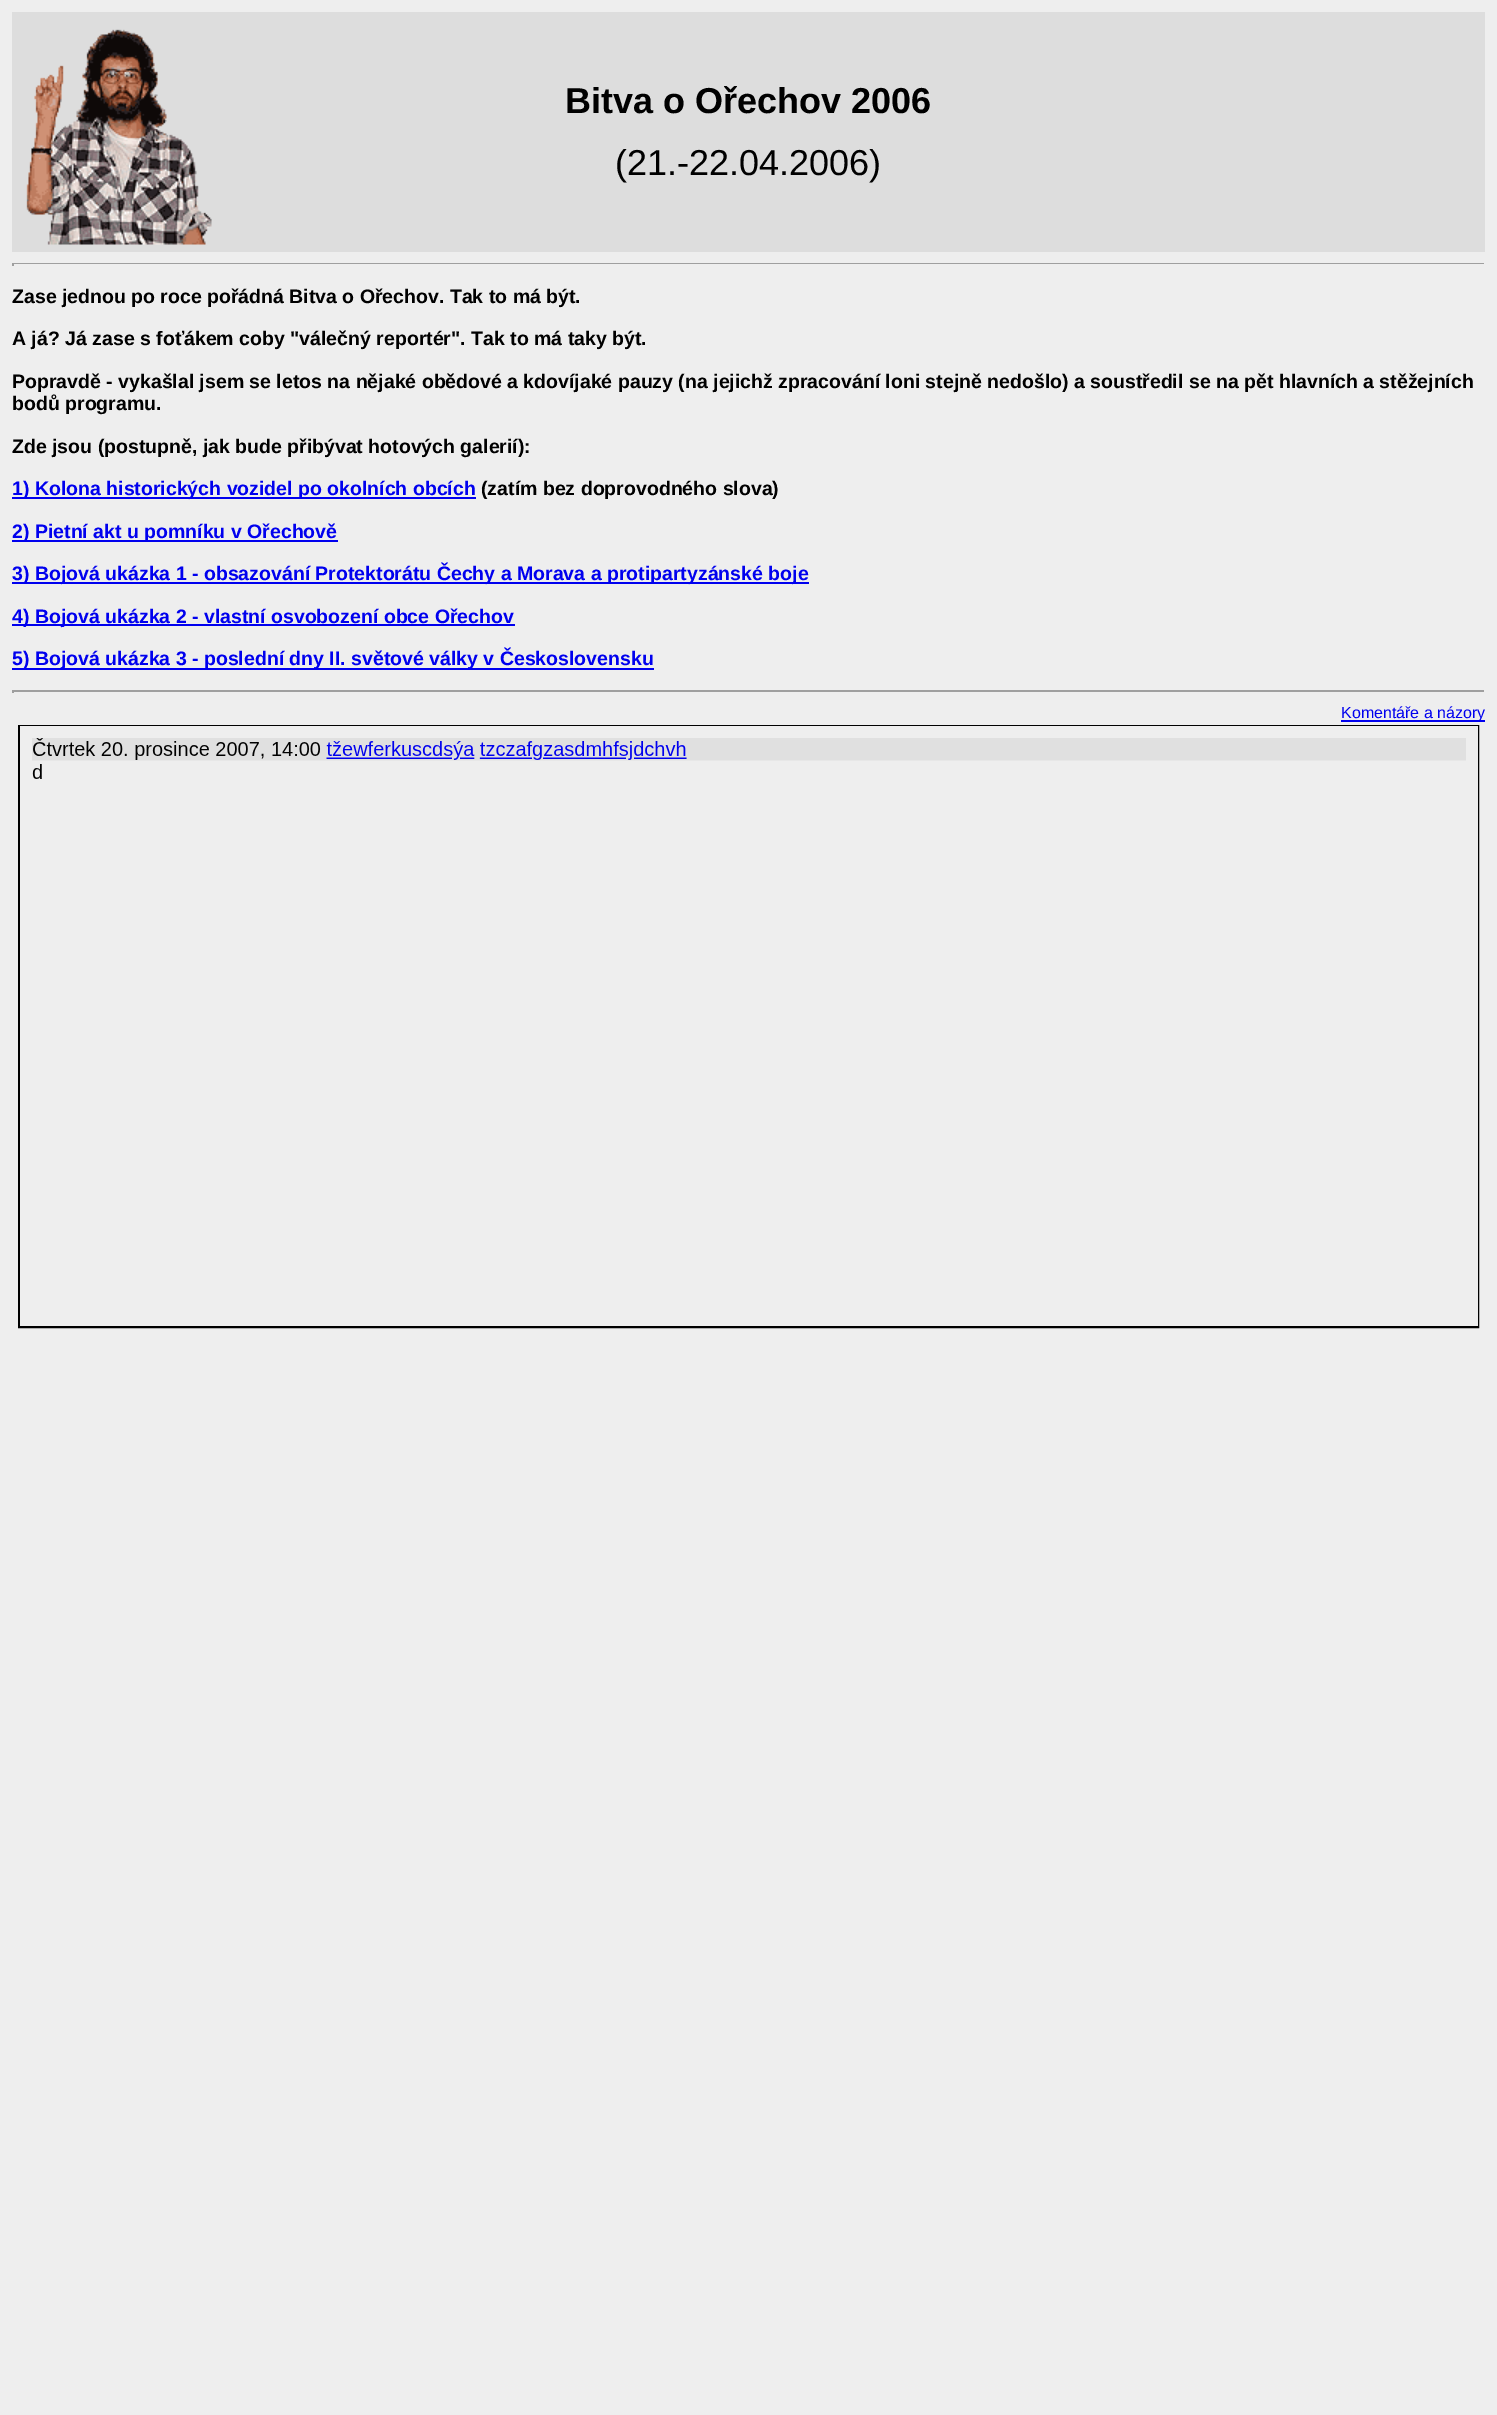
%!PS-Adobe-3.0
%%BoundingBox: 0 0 1497 2415
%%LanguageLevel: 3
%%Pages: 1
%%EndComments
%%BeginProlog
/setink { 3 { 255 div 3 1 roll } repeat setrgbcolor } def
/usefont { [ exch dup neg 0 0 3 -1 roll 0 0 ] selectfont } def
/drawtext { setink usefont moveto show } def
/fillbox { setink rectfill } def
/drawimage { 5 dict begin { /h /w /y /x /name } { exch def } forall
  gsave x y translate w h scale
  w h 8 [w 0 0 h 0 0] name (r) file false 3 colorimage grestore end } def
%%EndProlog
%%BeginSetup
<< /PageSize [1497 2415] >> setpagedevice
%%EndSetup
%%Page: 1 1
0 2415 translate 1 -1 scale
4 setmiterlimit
0 0 1497 2415 238 238 238 fillbox
12 12 1473 240 221 221 221 fillbox
(assets/img1.rgb) 26 29 186 216 drawimage
(Bitva o Ořechov 2006) 565 113 /LiberationSans-Bold 36 0 0 0 drawtext
(\(21.-22.04.2006\)) 615 175 /LiberationSans-Regular 36 0 0 0 drawtext
12 263 1473 1 159 159 159 fillbox
1484 263 1 3 238 238 238 fillbox
12 263 2 3 159 159 159 fillbox
(Zase jednou po roce pořádná Bitva o Ořechov. Tak to má být.) 12 303 /LiberationSans-Bold 19.5 0 0 0 drawtext
(A já? Já zase s foťákem coby "válečný reportér". Tak to má taky být.) 12 345 /LiberationSans-Bold 19.5 0 0 0 drawtext
(Popravdě - vykašlal jsem se letos na nějaké obědové a kdovíjaké pauzy \(na jejichž zpracování loni stejně nedošlo\) a soustředil se na pět hlavních a stěžejních) 12 388 /LiberationSans-Bold 19.5 0 0 0 drawtext
(bodů programu.) 12 410 /LiberationSans-Bold 19.5 0 0 0 drawtext
(Zde jsou \(postupně, jak bude přibývat hotových galerií\):) 12 453 /LiberationSans-Bold 19.5 0 0 0 drawtext
12 497 464 2 0 0 238 fillbox
(1\) Kolona historických vozidel po okolních obcích) 12 495 /LiberationSans-Bold 19.5 0 0 238 drawtext
(\(zatím bez doprovodného slova\)) 481 495 /LiberationSans-Bold 19.5 0 0 0 drawtext
12 540 326 2 0 0 238 fillbox
(2\) Pietní akt u pomníku v Ořechově) 12 538 /LiberationSans-Bold 19.5 0 0 238 drawtext
12 582 797 2 0 0 238 fillbox
(3\) Bojová ukázka 1 - obsazování Protektorátu Čechy a Morava a protipartyzánské boje) 12 580 /LiberationSans-Bold 19.5 0 0 238 drawtext
12 624 503 2 0 0 238 fillbox
(4\) Bojová ukázka 2 - vlastní osvobození obce Ořechov) 12 623 /LiberationSans-Bold 19.5 0 0 238 drawtext
12 668 642 2 0 0 238 fillbox
(5\) Bojová ukázka 3 - poslední dny II. světové války v Československu) 12 665 /LiberationSans-Bold 19.5 0 0 238 drawtext
12 690 1473 2 159 159 159 fillbox
1484 690 1 3 238 238 238 fillbox
12 690 2 3 159 159 159 fillbox
1341 720 144 2 0 0 238 fillbox
(Komentáře a názory) 1341 718 /LiberationSans-Regular 16 0 0 238 drawtext
0 0 0 setink
2 setlinewidth
19 726 1459 601 rectstroke
(assets/img2.rgb) 20 726 1458 600 drawimage
showpage
%%EOF
